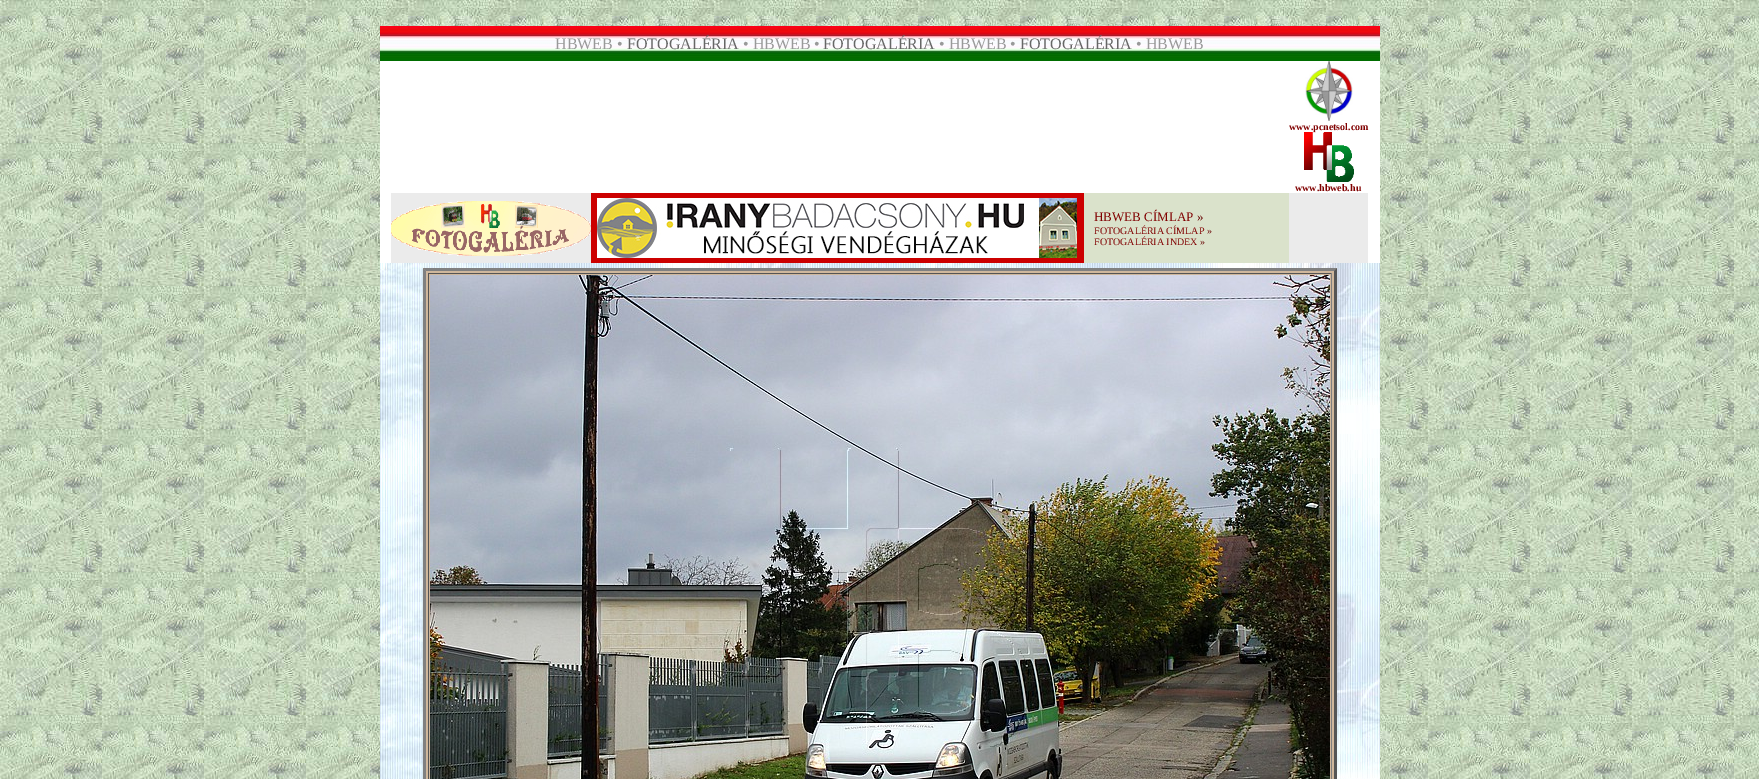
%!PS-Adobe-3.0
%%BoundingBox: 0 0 1759 779
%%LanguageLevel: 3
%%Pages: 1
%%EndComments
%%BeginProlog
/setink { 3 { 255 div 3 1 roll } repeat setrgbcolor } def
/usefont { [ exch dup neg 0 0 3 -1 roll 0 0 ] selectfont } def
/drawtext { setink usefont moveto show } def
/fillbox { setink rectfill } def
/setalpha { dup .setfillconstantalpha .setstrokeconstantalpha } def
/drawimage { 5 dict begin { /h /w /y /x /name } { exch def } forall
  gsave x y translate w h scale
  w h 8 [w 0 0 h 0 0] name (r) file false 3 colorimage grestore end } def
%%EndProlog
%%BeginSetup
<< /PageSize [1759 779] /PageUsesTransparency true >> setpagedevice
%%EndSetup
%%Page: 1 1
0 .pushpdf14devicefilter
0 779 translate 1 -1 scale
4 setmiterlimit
0 0 1759 779 255 255 255 fillbox
(assets/img1.rgb) 0 0 1759 779 drawimage
(assets/img2.rgb) 380 26 1000 35 drawimage
(HBWEB •) 555 49 /LiberationSerif-Regular 16 153 153 153 drawtext
(FOTOGALÉRIA) 627 49 /LiberationSerif-Regular 16 102 102 102 drawtext
(• HBWEB •) 743 49 /LiberationSerif-Regular 16 153 153 153 drawtext
(FOTOGALÉRIA) 823 49 /LiberationSerif-Regular 16 102 102 102 drawtext
(• HBWEB •) 939 49 /LiberationSerif-Regular 16 153 153 153 drawtext
(FOTOGALÉRIA) 1020 49 /LiberationSerif-Regular 16 102 102 102 drawtext
(• HBWEB) 1136 49 /LiberationSerif-Regular 16 153 153 153 drawtext
(assets/img3.rgb) 380 263 1000 516 drawimage
380 61 1000 202 255 255 255 fillbox
(assets/img4.rgb) 1305 61 48 60 drawimage
(www.pcnetsol.com) 1289 130 /LiberationSerif-Bold 10 128 0 0 drawtext
(assets/img5.rgb) 1304 132 50 50 drawimage
(www.hbweb.hu) 1295 191 /LiberationSerif-Bold 10 128 0 0 drawtext
391 193 200 70 235 235 235 fillbox
(assets/img6.rgb) 391 201 200 55 drawimage
1084 193 205 70 218 226 203 fillbox
591 193 493 70 204 0 0 fillbox
(assets/img7.rgb) 597 198 480 60 drawimage
(HBWEB CÍMLAP) 1094 221 /LiberationSerif-Regular 13 128 0 0 drawtext
(») 1197 221 /LiberationSerif-Regular 13 102 0 0 drawtext
(FOTOGALÉRIA CÍMLAP) 1094 234 /LiberationSerif-Regular 10 128 0 0 drawtext
(») 1207 234 /LiberationSerif-Regular 10 102 0 0 drawtext
(FOTOGALÉRIA INDEX) 1094 245 /LiberationSerif-Regular 10 128 0 0 drawtext
(») 1200 245 /LiberationSerif-Regular 10 102 0 0 drawtext
1289 193 79 70 235 235 235 fillbox
0.44 setalpha
874 264 3 3 255 255 255 fillbox
1 setalpha
(assets/img8.rgb) 883 264 2 3 drawimage
423 268 914 511 207 183 156 fillbox
128 128 128 setink
423 268 moveto 1337 268 lineto 1334 271 lineto 426 271 lineto closepath fill
85 85 85 setink
1337 268 moveto 1337 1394 lineto 1334 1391 lineto 1334 271 lineto closepath fill
128 128 128 setink
423 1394 moveto 423 268 lineto 426 271 lineto 426 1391 lineto closepath fill
428 273 904 1 85 85 85 fillbox
1331 273 1 506 128 128 128 fillbox
428 273 1 506 85 85 85 fillbox
(assets/img9.rgb) 430 275 900 504 drawimage
.poppdf14devicefilter showpage
%%EOF
